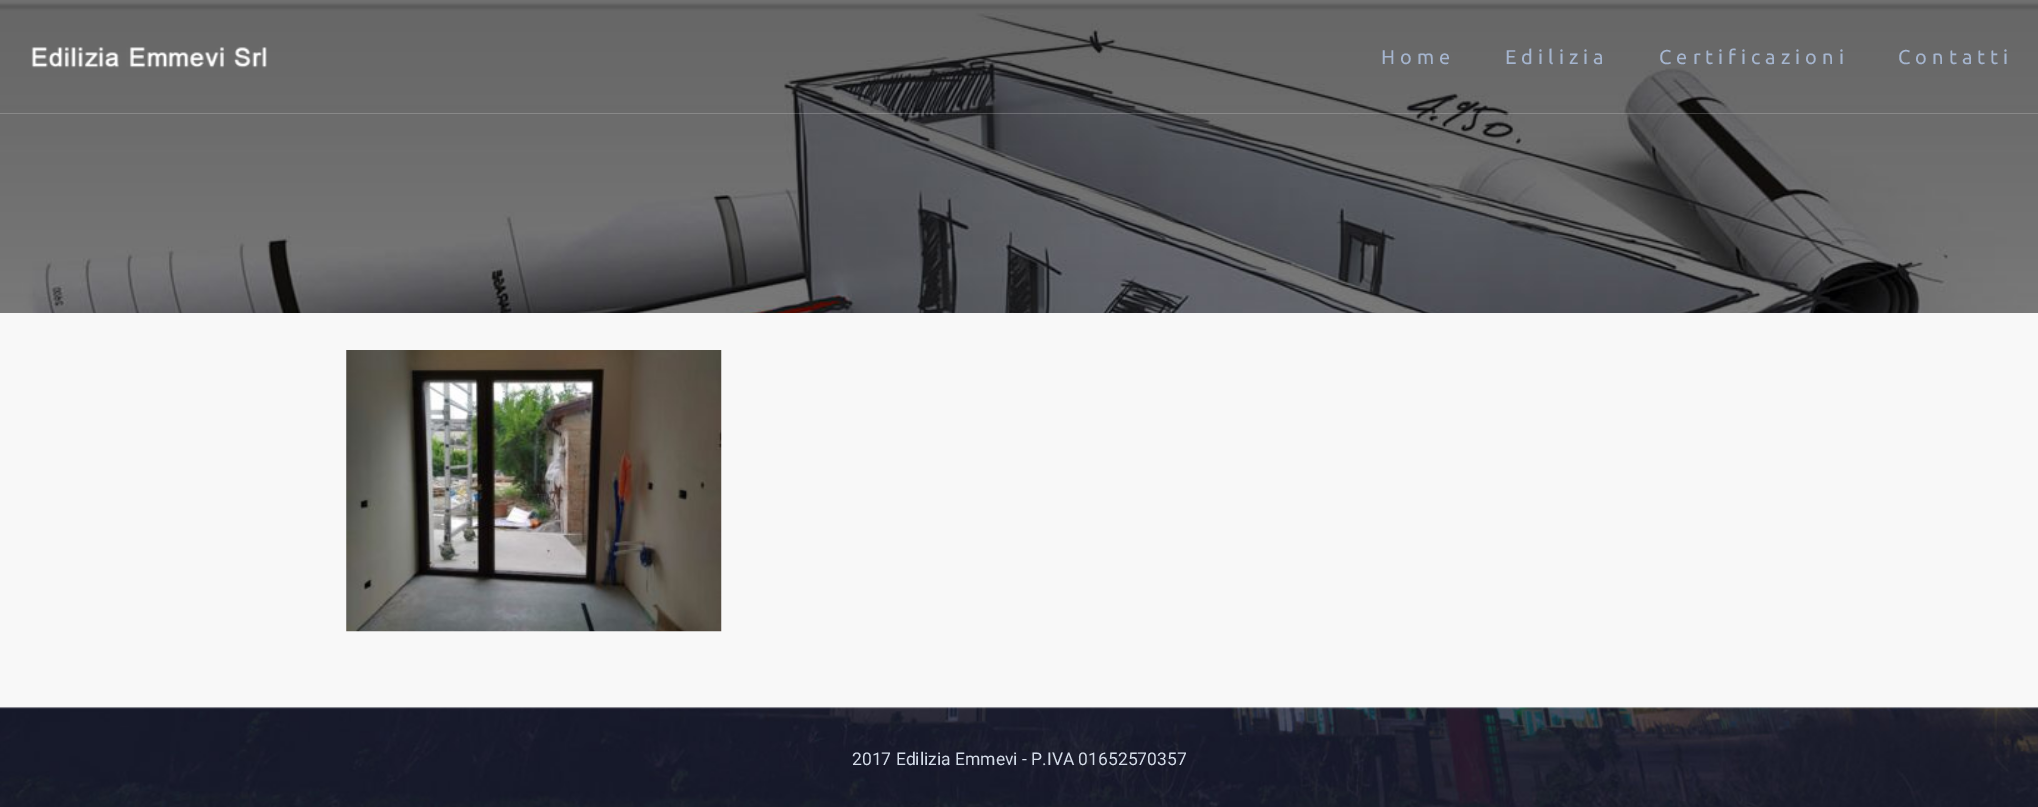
%!PS-Adobe-3.0
%%BoundingBox: 0 0 2038 807
%%LanguageLevel: 3
%%Pages: 1
%%EndComments
%%BeginProlog
/setink { 3 { 255 div 3 1 roll } repeat setrgbcolor } def
/usefont { [ exch dup neg 0 0 3 -1 roll 0 0 ] selectfont } def
/drawtext { setink usefont moveto show } def
/fillbox { setink rectfill } def
/setalpha { dup .setfillconstantalpha .setstrokeconstantalpha } def
/drawimage { 5 dict begin { /h /w /y /x /name } { exch def } forall
  gsave x y translate w h scale
  w h 8 [w 0 0 h 0 0] name (r) file false 3 colorimage grestore end } def
%%EndProlog
%%BeginSetup
<< /PageSize [2038 807] /PageUsesTransparency true >> setpagedevice
%%EndSetup
%%Page: 1 1
0 .pushpdf14devicefilter
0 807 translate 1 -1 scale
4 setmiterlimit
0 0 2038 807 248 248 248 fillbox
(assets/img1.rgb) 0 0 2038 313 drawimage
0.2 setalpha
0 113 2038 1 255 255 255 fillbox
1 setalpha
(assets/img2.rgb) 31 47 236 21 drawimage
/Ubuntu-Regular 20 usefont
165 181 207 setink
1381 64 moveto 5 0 (Home) ashow
1505 64 moveto 5 0 (Edilizia) ashow
1659 64 moveto 5 0 (Certificazioni) ashow
1898 64 moveto 5 0 (Contatti) ashow
(assets/img3.rgb) 346 350 376 282 drawimage
(assets/img4.rgb) 0 707 2038 100 drawimage
0.1 setalpha
0 708 2038 1 255 255 255 fillbox
1 setalpha
(2017 Edilizia Emmevi - P.IVA 01652570357) 852 765 /Roboto-Regular 17.5 213 221 234 drawtext
.poppdf14devicefilter showpage
%%EOF
